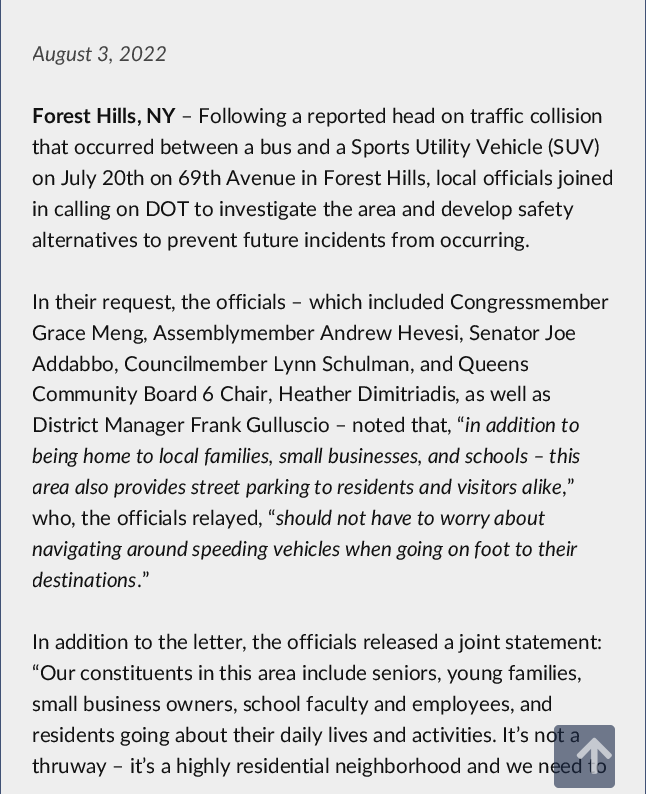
%!PS-Adobe-3.0
%%BoundingBox: 0 0 646 794
%%LanguageLevel: 3
%%Pages: 1
%%EndComments
%%BeginProlog
/setink { 3 { 255 div 3 1 roll } repeat setrgbcolor } def
/usefont { [ exch dup neg 0 0 3 -1 roll 0 0 ] selectfont } def
/drawtext { setink usefont moveto show } def
/fillbox { setink rectfill } def
/setalpha { dup .setfillconstantalpha .setstrokeconstantalpha } def
/rrect { 5 dict begin { /r /h /w /y /x } { exch def } forall
  x r add y moveto x w add y 2 copy h add r arct x w add y h add x 1 index r arct
  x y h add x y r arct x y 2 copy exch w add exch r arct closepath end } def
/drawimage { 5 dict begin { /h /w /y /x /name } { exch def } forall
  gsave x y translate w h scale
  w h 8 [w 0 0 h 0 0] name (r) file false 3 colorimage grestore end } def
%%EndProlog
%%BeginSetup
<< /PageSize [646 794] /PageUsesTransparency true >> setpagedevice
%%EndSetup
%%Page: 1 1
0 .pushpdf14devicefilter
0 794 translate 1 -1 scale
4 setmiterlimit
0 0 646 794 238 238 238 fillbox
645 0 1 794 64 81 117 fillbox
0 0 1 794 64 81 117 fillbox
gsave
33 0 581 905 rectclip
(August 3, 2022) 32 61 /Lato-Italic 20.65 68 68 68 drawtext
grestore
(Forest Hills, NY) 32 123 /Lato-Bold 20.65 17 17 17 drawtext
(– Following a reported head on traffic collision) 181 123 /Lato-Regular 20.65 17 17 17 drawtext
(that occurred between a bus and a Sports Utility Vehicle \(SUV\)) 32 154 /Lato-Regular 20.65 17 17 17 drawtext
(on July 20th on 69th Avenue in Forest Hills, local officials joined) 32 185 /Lato-Regular 20.65 17 17 17 drawtext
(in calling on DOT to investigate the area and develop safety) 32 216 /Lato-Regular 20.65 17 17 17 drawtext
(alternatives to prevent future incidents from occurring.) 32 247 /Lato-Regular 20.65 17 17 17 drawtext
(In their request, the officials – which included Congressmember) 32 309 /Lato-Regular 20.65 17 17 17 drawtext
(Grace Meng, Assemblymember Andrew Hevesi, Senator Joe) 32 340 /Lato-Regular 20.65 17 17 17 drawtext
(Addabbo, Councilmember Lynn Schulman, and Queens) 32 371 /Lato-Regular 20.65 17 17 17 drawtext
(Community Board 6 Chair, Heather Dimitriadis, as well as) 32 401 /Lato-Regular 20.65 17 17 17 drawtext
(District Manager Frank Gulluscio – noted that, “) 32 432 /Lato-Regular 20.65 17 17 17 drawtext
(in addition to) 465 432 /Lato-Italic 20.65 17 17 17 drawtext
(being home to local families, small businesses, and schools – this) 32 463 /Lato-Italic 20.65 17 17 17 drawtext
gsave
33 0 581 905 rectclip
(area also provides street parking to residents and visitors alike) 32 494 /Lato-Italic 20.65 17 17 17 drawtext
grestore
(,”) 562 494 /Lato-Regular 20.65 17 17 17 drawtext
(who, the officials relayed, “) 32 525 /Lato-Regular 20.65 17 17 17 drawtext
(should not have to worry about) 276 525 /Lato-Italic 20.65 17 17 17 drawtext
(navigating around speeding vehicles when going on foot to their) 32 556 /Lato-Italic 20.65 17 17 17 drawtext
gsave
33 0 581 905 rectclip
(destinations) 32 587 /Lato-Italic 20.65 17 17 17 drawtext
grestore
(.”) 137 587 /Lato-Regular 20.65 17 17 17 drawtext
(In addition to the letter, the officials released a joint statement:) 32 649 /Lato-Regular 20.65 17 17 17 drawtext
(“Our constituents in this area include seniors, young families,) 32 680 /Lato-Regular 20.65 17 17 17 drawtext
(small business owners, school faculty and employees, and) 32 711 /Lato-Regular 20.65 17 17 17 drawtext
(residents going about their daily lives and activities. It’s not a) 32 742 /Lato-Regular 20.65 17 17 17 drawtext
(thruway – it’s a highly residential neighborhood and we need to) 32 773 /Lato-Regular 20.65 17 17 17 drawtext
0.6 setalpha
25 40 71 setink
554 725 61 63 5 rrect fill
1 setalpha
(assets/img1.rgb) 576 737 36 37 drawimage
.poppdf14devicefilter showpage
%%EOF
